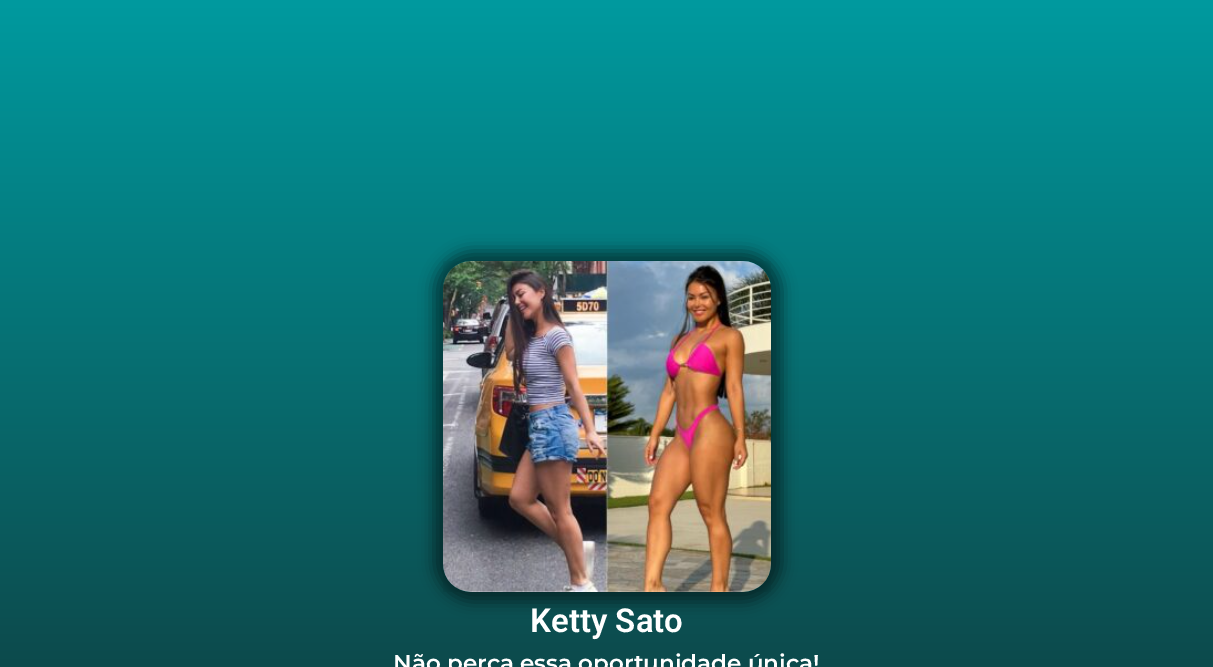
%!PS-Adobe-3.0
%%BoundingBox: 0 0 1213 667
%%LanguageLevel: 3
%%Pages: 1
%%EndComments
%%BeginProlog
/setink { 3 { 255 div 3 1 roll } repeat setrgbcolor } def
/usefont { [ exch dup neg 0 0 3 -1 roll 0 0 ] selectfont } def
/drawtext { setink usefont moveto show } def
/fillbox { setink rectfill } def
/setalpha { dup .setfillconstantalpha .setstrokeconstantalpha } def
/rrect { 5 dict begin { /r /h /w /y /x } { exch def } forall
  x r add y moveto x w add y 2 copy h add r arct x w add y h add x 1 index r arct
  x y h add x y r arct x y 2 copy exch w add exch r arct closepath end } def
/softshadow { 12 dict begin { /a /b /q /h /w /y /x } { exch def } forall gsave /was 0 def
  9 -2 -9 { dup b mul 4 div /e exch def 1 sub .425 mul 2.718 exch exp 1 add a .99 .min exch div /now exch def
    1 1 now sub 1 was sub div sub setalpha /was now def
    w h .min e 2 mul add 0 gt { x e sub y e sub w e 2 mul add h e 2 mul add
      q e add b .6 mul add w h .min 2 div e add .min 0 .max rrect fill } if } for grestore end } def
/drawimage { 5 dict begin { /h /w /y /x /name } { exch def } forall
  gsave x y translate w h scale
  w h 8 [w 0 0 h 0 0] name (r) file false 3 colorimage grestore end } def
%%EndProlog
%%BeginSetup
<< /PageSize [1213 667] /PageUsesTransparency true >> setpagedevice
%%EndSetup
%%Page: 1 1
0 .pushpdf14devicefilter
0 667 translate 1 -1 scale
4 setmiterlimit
0 0 1213 667 255 255 255 fillbox
gsave 0 0 moveto 1213 0 lineto 1213 667 lineto 0 667 lineto closepath clip newpath
<< /ShadingType 2 /ColorSpace /DeviceRGB /Coords [607 0 607 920] /Extend [true true] /Function << /FunctionType 3 /Domain [0 1] /Functions [<< /FunctionType 2 /Domain [0 1] /C0 [0 0.604 0.624] /C1 [0.059 0.227 0.231] /N 1 >> << /FunctionType 2 /Domain [0 1] /C0 [0.059 0.227 0.231] /C1 [0.059 0.227 0.231] /N 1 >>] /Bounds [0.87] /Encode [0 1 0 1] >> >> shfill grestore
0 0 0 setink
434 251 348 351 38 7.5 0.5 softshadow
(assets/img1.rgb) 443 261 328 331 drawimage
(Ketty Sato) 530 632 /Roboto-SemiBold 33 255 255 255 drawtext
(Não perca essa oportunidade única!) 393 671 /Montserrat-SemiBold 23 255 255 255 drawtext
.poppdf14devicefilter showpage
%%EOF
